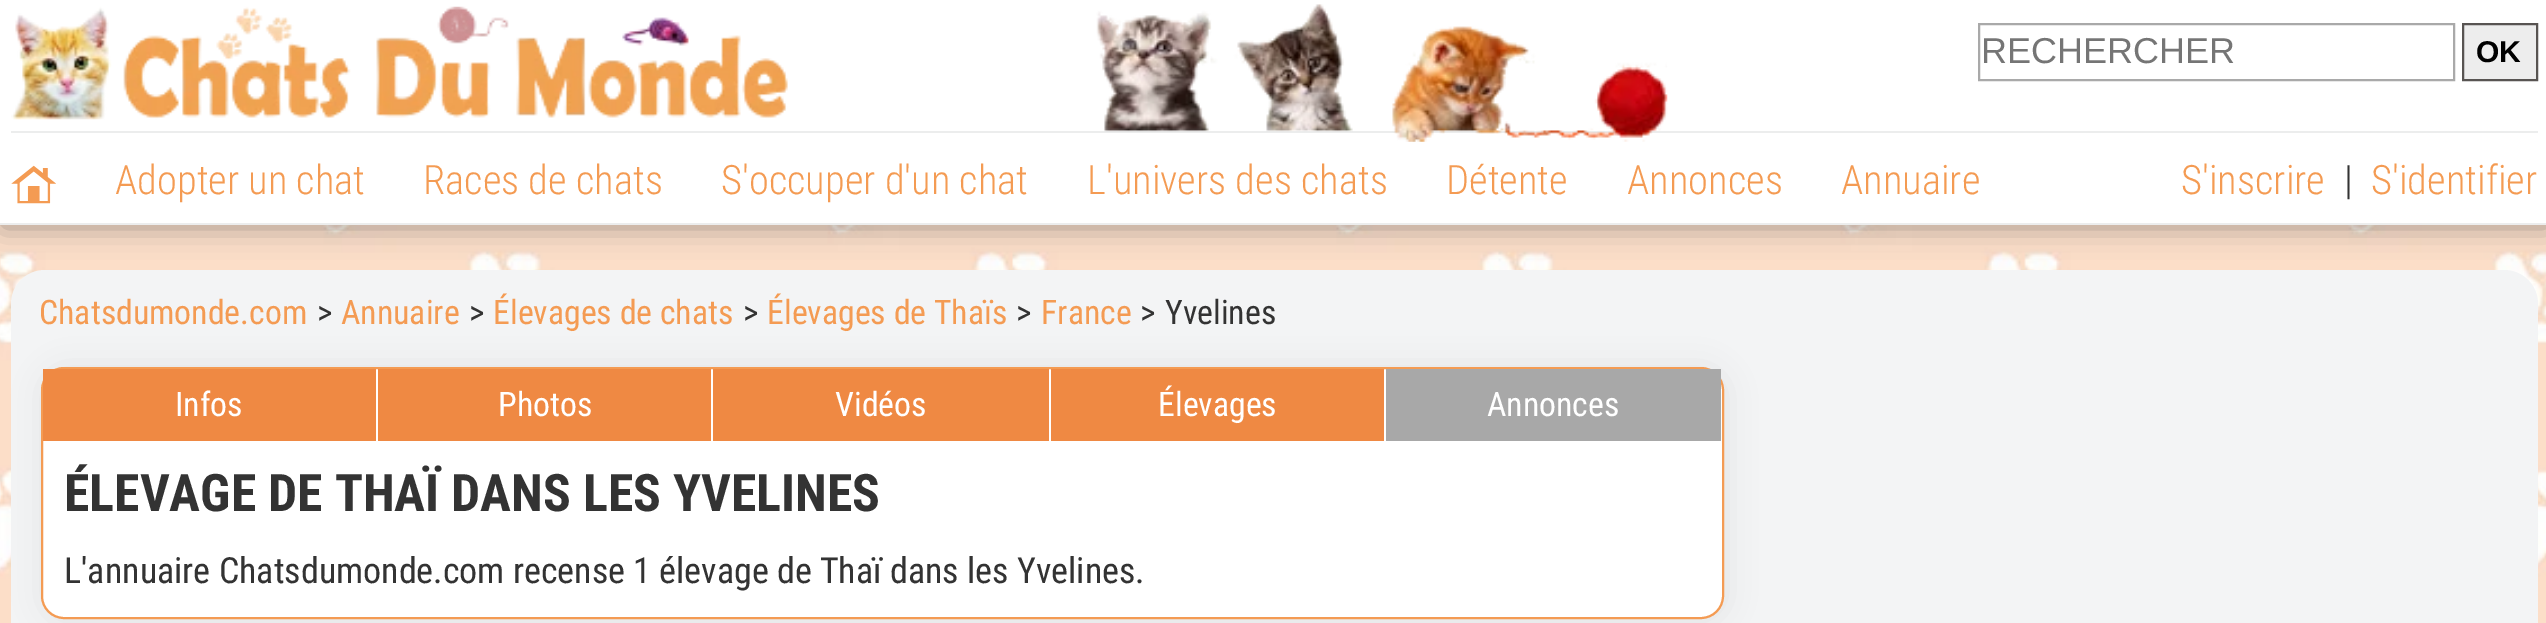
%!PS-Adobe-3.0
%%BoundingBox: 0 0 2546 623
%%LanguageLevel: 3
%%Pages: 1
%%EndComments
%%BeginProlog
/setink { 3 { 255 div 3 1 roll } repeat setrgbcolor } def
/usefont { [ exch dup neg 0 0 3 -1 roll 0 0 ] selectfont } def
/drawtext { setink usefont moveto show } def
/fillbox { setink rectfill } def
/setalpha { dup .setfillconstantalpha .setstrokeconstantalpha } def
/rrect { 5 dict begin { /r /h /w /y /x } { exch def } forall
  x r add y moveto x w add y 2 copy h add r arct x w add y h add x 1 index r arct
  x y h add x y r arct x y 2 copy exch w add exch r arct closepath end } def
/softshadow { 12 dict begin { /a /b /q /h /w /y /x } { exch def } forall gsave /was 0 def
  9 -2 -9 { dup b mul 4 div /e exch def 1 sub .425 mul 2.718 exch exp 1 add a .99 .min exch div /now exch def
    1 1 now sub 1 was sub div sub setalpha /was now def
    w h .min e 2 mul add 0 gt { x e sub y e sub w e 2 mul add h e 2 mul add
      q e add b .6 mul add w h .min 2 div e add .min 0 .max rrect fill } if } for grestore end } def
/drawimage { 5 dict begin { /h /w /y /x /name } { exch def } forall
  gsave x y translate w h scale
  w h 8 [w 0 0 h 0 0] name (r) file false 3 colorimage grestore end } def
%%EndProlog
%%BeginSetup
<< /PageSize [2546 623] /PageUsesTransparency true >> setpagedevice
%%EndSetup
%%Page: 1 1
0 .pushpdf14devicefilter
0 623 translate 1 -1 scale
4 setmiterlimit
0 0 2546 623 255 255 255 fillbox
(assets/img1.rgb) 0 225 2546 398 drawimage
72 72 72 setink
2 2 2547 225 0 14.5 0.5 softshadow
0 0 2546 223 255 255 255 fillbox
0 223 2546 2 236 237 237 fillbox
(assets/img2.rgb) 11 6 777 114 drawimage
11 131 2527 2 236 237 237 fillbox
(assets/img3.rgb) 1096 4 572 138 drawimage
169 169 169 setink
2 setlinewidth
1979 24 475 56 rectstroke
(RECHERCHER) 1981 63 /LiberationSans-Regular 36 117 117 117 drawtext
237 237 237 setink
2463 24 moveto 2537 24 lineto 2537 80 lineto 2463 80 lineto closepath gsave fill grestore
88 84 82 setink
stroke
(OK) 2476 62 /LiberationSans-Bold 30 0 0 0 drawtext
(assets/img4.rgb) 11 165 45 39 drawimage
(Adopter un chat) 115 194 /Roboto-Light 40.5 244 155 83 drawtext
(Races de chats) 423 194 /Roboto-Light 40.5 244 155 83 drawtext
(S'occuper d'un chat) 721 194 /Roboto-Light 40.5 244 155 83 drawtext
(L'univers des chats) 1087 194 /Roboto-Light 40.5 244 155 83 drawtext
(Détente) 1446 194 /Roboto-Light 40.5 244 155 83 drawtext
(Annonces) 1627 194 /Roboto-Light 40.5 244 155 83 drawtext
(Annuaire) 1841 194 /Roboto-Light 40.5 244 155 83 drawtext
(S'inscrire) 2181 194 /Roboto-Light 40.5 244 155 83 drawtext
(|) 2344 194 /Roboto-Light 40.5 51 51 51 drawtext
(S'identifier) 2371 194 /Roboto-Light 40.5 244 155 83 drawtext
243 244 245 setink
11 270 2527 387 34 rrect fill
72 72 72 setink
43 369 1683 252 23 14.5 0.1 softshadow
(Chatsdumonde.com) 39 324 /RobotoCondensed-Regular 33.75 244 155 83 drawtext
(>) 317 324 /RobotoCondensed-Regular 33.75 51 51 51 drawtext
(Annuaire) 341 324 /RobotoCondensed-Regular 33.75 244 155 83 drawtext
(>) 469 324 /RobotoCondensed-Regular 33.75 51 51 51 drawtext
(Élevages de chats) 493 324 /RobotoCondensed-Regular 33.75 244 155 83 drawtext
(>) 743 324 /RobotoCondensed-Regular 33.75 51 51 51 drawtext
(Élevages de Thaïs) 767 324 /RobotoCondensed-Regular 33.75 244 155 83 drawtext
(>) 1016 324 /RobotoCondensed-Regular 33.75 51 51 51 drawtext
(France) 1041 324 /RobotoCondensed-Regular 33.75 244 155 83 drawtext
(>) 1140 324 /RobotoCondensed-Regular 33.75 51 51 51 drawtext
(Yvelines) 1165 324 /RobotoCondensed-Regular 33.75 51 51 51 drawtext
255 255 255 setink
42 368 1681 250 22 rrect gsave fill grestore
244 155 83 setink
stroke
43 369 333 72 239 137 67 fillbox
(Infos) 175 416 /RobotoCondensed-Regular 33.75 255 255 255 drawtext
378 369 333 72 239 137 67 fillbox
(Photos) 498 416 /RobotoCondensed-Regular 33.75 255 255 255 drawtext
713 369 336 72 239 137 67 fillbox
(Vidéos) 835 416 /RobotoCondensed-Regular 33.75 255 255 255 drawtext
1051 369 333 72 239 137 67 fillbox
(Élevages) 1158 416 /RobotoCondensed-Regular 33.75 255 255 255 drawtext
1386 369 335 72 168 168 168 fillbox
(Annonces) 1487 416 /RobotoCondensed-Regular 33.75 255 255 255 drawtext
(ÉLEVAGE DE THAÏ DANS LES YVELINES) 64 511 /Roboto-Bold 51.75 51 51 51 drawtext
(L'annuaire Chatsdumonde.com recense 1 élevage de Thaï dans les Yvelines.) 64 583 /RobotoCondensed-Regular 36 51 51 51 drawtext
.poppdf14devicefilter showpage
%%EOF
